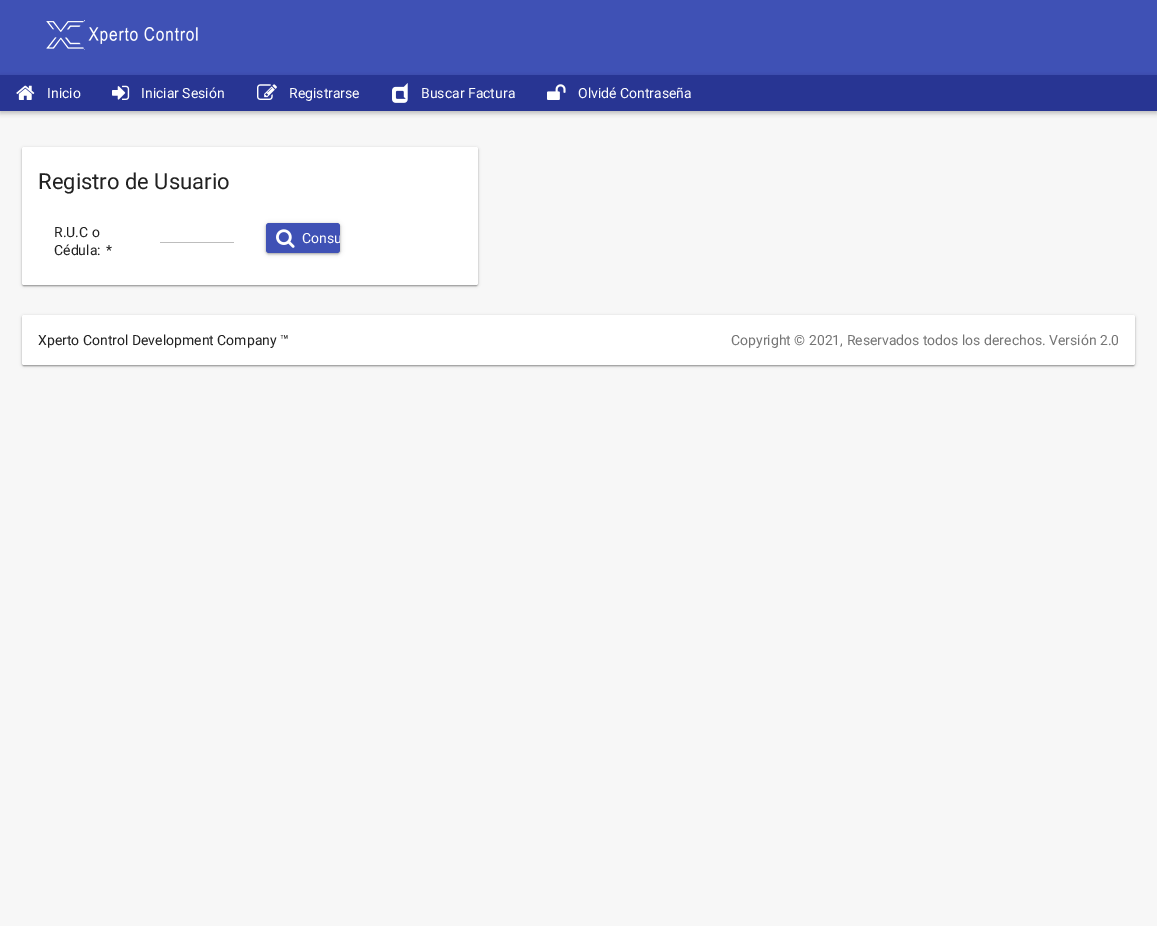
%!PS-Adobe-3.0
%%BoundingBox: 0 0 1157 926
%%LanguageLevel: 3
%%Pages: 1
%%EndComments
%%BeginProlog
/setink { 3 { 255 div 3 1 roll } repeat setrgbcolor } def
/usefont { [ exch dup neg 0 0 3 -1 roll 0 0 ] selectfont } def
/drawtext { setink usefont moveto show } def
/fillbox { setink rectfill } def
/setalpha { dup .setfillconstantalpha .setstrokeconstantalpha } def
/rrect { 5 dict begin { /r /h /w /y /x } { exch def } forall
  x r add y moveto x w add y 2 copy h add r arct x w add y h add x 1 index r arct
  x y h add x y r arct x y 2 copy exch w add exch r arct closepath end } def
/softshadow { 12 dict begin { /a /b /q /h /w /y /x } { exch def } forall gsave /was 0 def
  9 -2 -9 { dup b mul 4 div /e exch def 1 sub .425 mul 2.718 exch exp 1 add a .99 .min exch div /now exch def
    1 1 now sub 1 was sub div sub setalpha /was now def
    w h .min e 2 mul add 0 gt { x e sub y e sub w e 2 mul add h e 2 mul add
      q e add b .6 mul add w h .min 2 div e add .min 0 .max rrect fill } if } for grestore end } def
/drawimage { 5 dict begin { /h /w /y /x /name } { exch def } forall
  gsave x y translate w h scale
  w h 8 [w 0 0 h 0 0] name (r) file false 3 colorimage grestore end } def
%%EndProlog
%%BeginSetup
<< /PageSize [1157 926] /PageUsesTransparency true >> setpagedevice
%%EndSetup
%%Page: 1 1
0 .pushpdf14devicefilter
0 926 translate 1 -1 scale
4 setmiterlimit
0 0 1157 926 247 247 247 fillbox
0 0 1157 75 63 81 181 fillbox
(assets/img1.rgb) 46 20 152 30 drawimage
0 0 0 setink
0 77 1157 36 0 2.5 0.26 softshadow
0 75 1157 36 40 53 147 fillbox
(assets/img2.rgb) 16 85 19 15 drawimage
(Inicio) 47 98 /Roboto-Regular 14 255 255 255 drawtext
(assets/img3.rgb) 112 85 18 15 drawimage
(Iniciar Sesión) 141 98 /Roboto-Regular 14 255 255 255 drawtext
(assets/img4.rgb) 257 84 20 16 drawimage
(Registrarse) 289 98 /Roboto-Regular 14 255 255 255 drawtext
(assets/img5.rgb) 392 83 16 20 drawimage
(Buscar Factura) 421 98 /Roboto-Regular 14 255 255 255 drawtext
(assets/img6.rgb) 547 84 19 16 drawimage
(Olvidé Contraseña) 578 98 /Roboto-Regular 14 255 255 255 drawtext
0 0 0 setink
23 150 454 136 1 0.5 0.12 softshadow
22 148 456 138 2 0.5 0.14 softshadow
22 148 456 138 2 1.5 0.2 softshadow
255 255 255 setink
22 147 456 138 2 rrect fill
(Registro de Usuario) 38 189 /Roboto-Regular 22 33 33 33 drawtext
(R.U.C o) 54 237 /Roboto-Regular 14 33 33 33 drawtext
(Cédula:) 54 255 /Roboto-Regular 14 33 33 33 drawtext
(*) 106 255 /Roboto-Regular 14 33 33 33 drawtext
160 242 74 1 189 189 189 fillbox
0 0 0 setink
266 224 74 30 3 2.5 0.16 softshadow
266 224 74 30 3 1 0.26 softshadow
63 81 181 setink
266 223 74 30 3 rrect fill
(assets/img7.rgb) 276 229 19 19 drawimage
gsave
266 223 74 30 3 rrect clip newpath
(Consu) 302 243 /Roboto-Regular 14 255 255 255 drawtext
grestore
0 0 0 setink
23 318 1111 48 1 0.5 0.12 softshadow
22 316 1113 50 2 0.5 0.14 softshadow
22 316 1113 50 2 1.5 0.2 softshadow
255 255 255 setink
22 315 1113 50 2 rrect fill
(Xperto Control Development Company ™) 38 345 /Roboto-Regular 14 33 33 33 drawtext
(Copyright © 2021, Reservados todos los derechos. Versión 2.0) 731 345 /Roboto-Regular 14 117 117 117 drawtext
.poppdf14devicefilter showpage
%%EOF
